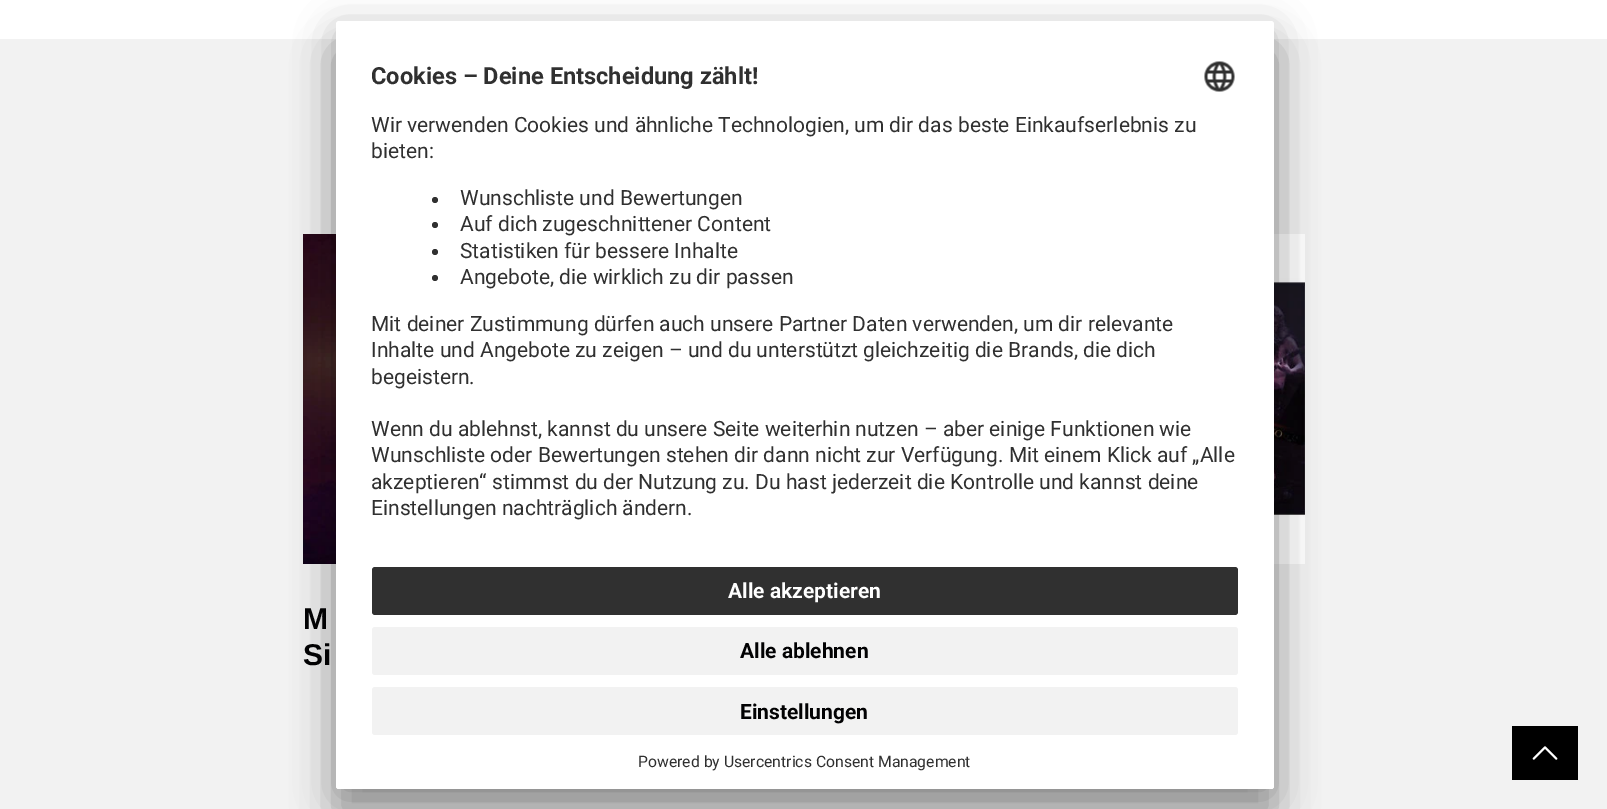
%!PS-Adobe-3.0
%%BoundingBox: 0 0 1607 809
%%LanguageLevel: 3
%%Pages: 1
%%EndComments
%%BeginProlog
/setink { 3 { 255 div 3 1 roll } repeat setrgbcolor } def
/usefont { [ exch dup neg 0 0 3 -1 roll 0 0 ] selectfont } def
/drawtext { setink usefont moveto show } def
/fillbox { setink rectfill } def
/setalpha { dup .setfillconstantalpha .setstrokeconstantalpha } def
/disc { newpath 0 360 arc closepath } def
/rrect { 5 dict begin { /r /h /w /y /x } { exch def } forall
  x r add y moveto x w add y 2 copy h add r arct x w add y h add x 1 index r arct
  x y h add x y r arct x y 2 copy exch w add exch r arct closepath end } def
/softshadow { 12 dict begin { /a /b /q /h /w /y /x } { exch def } forall gsave /was 0 def
  9 -2 -9 { dup b mul 4 div /e exch def 1 sub .425 mul 2.718 exch exp 1 add a .99 .min exch div /now exch def
    1 1 now sub 1 was sub div sub setalpha /was now def
    w h .min e 2 mul add 0 gt { x e sub y e sub w e 2 mul add h e 2 mul add
      q e add b .6 mul add w h .min 2 div e add .min 0 .max rrect fill } if } for grestore end } def
/drawimage { 5 dict begin { /h /w /y /x /name } { exch def } forall
  gsave x y translate w h scale
  w h 8 [w 0 0 h 0 0] name (r) file false 3 colorimage grestore end } def
%%EndProlog
%%BeginSetup
<< /PageSize [1607 809] /PageUsesTransparency true >> setpagedevice
%%EndSetup
%%Page: 1 1
0 .pushpdf14devicefilter
0 809 translate 1 -1 scale
4 setmiterlimit
0 0 1607 809 255 255 255 fillbox
0 39 1607 770 242 242 242 fillbox
(assets/img1.rgb) 1274 234 31 330 drawimage
(assets/img2.rgb) 303 234 33 330 drawimage
(M) 303 629 /LiberationSans-Bold 30 2 2 3 drawtext
(Si) 303 665 /LiberationSans-Bold 30 2 2 3 drawtext
0 0 0 setink
336 51 938 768 3 21 0.3 softshadow
336 29 938 768 3 19.5 0.22 softshadow
255 255 255 setink
336 21 938 768 3 rrect fill
(Cookies – Deine Entscheidung zählt!) 371 84 /Roboto-Bold 23.6 48 48 48 drawtext
(assets/img3.rgb) 1204 61 31 31 drawimage
(Wir verwenden Cookies und ähnliche Technologien, um dir das beste Einkaufserlebnis zu) 371 132 /Roboto-Regular 21 48 48 48 drawtext
(bieten:) 371 158 /Roboto-Regular 21 48 48 48 drawtext
435 200 3 disc fill
(Wunschliste und Bewertungen) 460 205 /Roboto-Regular 21 48 48 48 drawtext
435 225 3 disc fill
(Auf dich zugeschnittener Content) 460 231 /Roboto-Regular 21 48 48 48 drawtext
435 252 3 disc fill
(Statistiken für bessere Inhalte) 460 258 /Roboto-Regular 21 48 48 48 drawtext
435 278 3 disc fill
(Angebote, die wirklich zu dir passen) 460 284 /Roboto-Regular 21 48 48 48 drawtext
(Mit deiner Zustimmung dürfen auch unsere Partner Daten verwenden, um dir relevante) 371 331 /Roboto-Regular 21 48 48 48 drawtext
(Inhalte und Angebote zu zeigen – und du unterstützt gleichzeitig die Brands, die dich) 371 357 /Roboto-Regular 21 48 48 48 drawtext
(begeistern.) 371 384 /Roboto-Regular 21 48 48 48 drawtext
(Wenn du ablehnst, kannst du unsere Seite weiterhin nutzen – aber einige Funktionen wie) 371 436 /Roboto-Regular 21 48 48 48 drawtext
(Wunschliste oder Bewertungen stehen dir dann nicht zur Verfügung. Mit einem Klick auf „Alle) 371 462 /Roboto-Regular 21 48 48 48 drawtext
(akzeptieren“ stimmst du der Nutzung zu. Du hast jederzeit die Kontrolle und kannst deine) 371 489 /Roboto-Regular 21 48 48 48 drawtext
(Einstellungen nachträglich ändern.) 371 515 /Roboto-Regular 21 48 48 48 drawtext
255 255 255 setink
336 549 moveto 1274 549 lineto 1274 786 lineto 1274 787.5 1272.5 789 1271 789 curveto 339 789 lineto 337.5 789 336 787.5 336 786 curveto closepath fill
48 48 48 setink
372 567 866 48 3 rrect fill
(Alle akzeptieren) 728 598 /Roboto-Bold 21 255 255 255 drawtext
242 242 242 setink
372 627 866 48 3 rrect fill
(Alle ablehnen) 740 658 /Roboto-Bold 21 2 2 3 drawtext
242 242 242 setink
372 687 866 48 3 rrect fill
(Einstellungen) 740 719 /Roboto-Bold 21 2 2 3 drawtext
(Powered by Usercentrics Consent Management) 638 767 /Roboto-Regular 15.75 48 48 48 drawtext
1512 726 66 54 0 0 0 fillbox
(assets/img4.rgb) 1532 746 26 14 drawimage
.poppdf14devicefilter showpage
%%EOF
